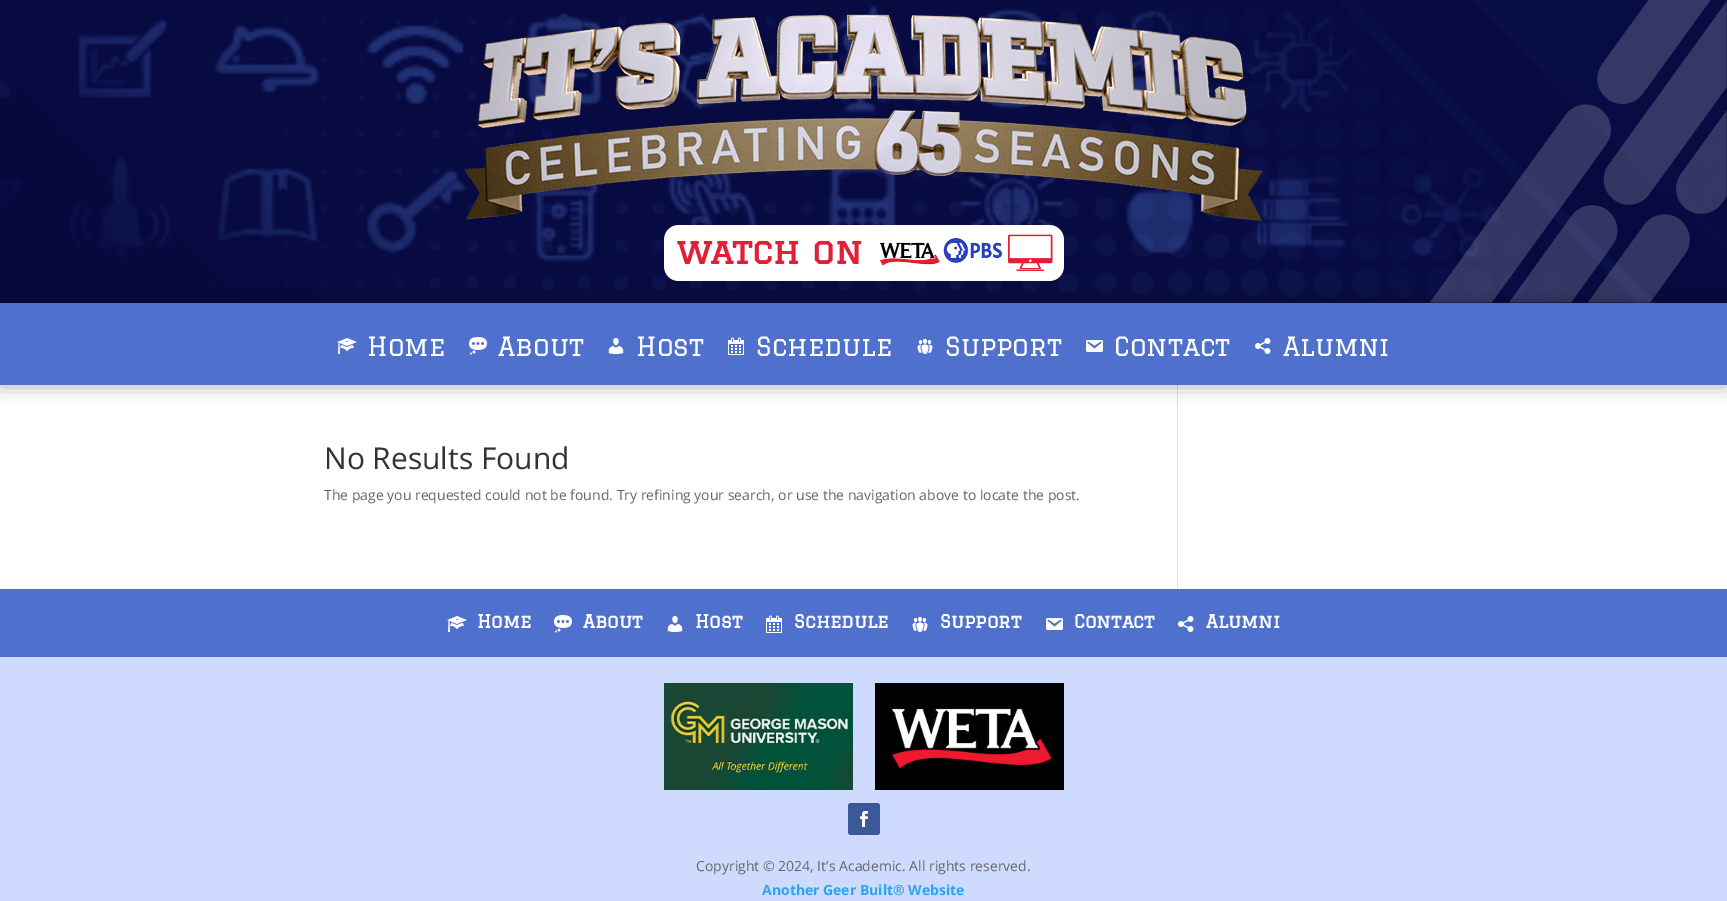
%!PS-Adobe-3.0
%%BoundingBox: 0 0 1727 901
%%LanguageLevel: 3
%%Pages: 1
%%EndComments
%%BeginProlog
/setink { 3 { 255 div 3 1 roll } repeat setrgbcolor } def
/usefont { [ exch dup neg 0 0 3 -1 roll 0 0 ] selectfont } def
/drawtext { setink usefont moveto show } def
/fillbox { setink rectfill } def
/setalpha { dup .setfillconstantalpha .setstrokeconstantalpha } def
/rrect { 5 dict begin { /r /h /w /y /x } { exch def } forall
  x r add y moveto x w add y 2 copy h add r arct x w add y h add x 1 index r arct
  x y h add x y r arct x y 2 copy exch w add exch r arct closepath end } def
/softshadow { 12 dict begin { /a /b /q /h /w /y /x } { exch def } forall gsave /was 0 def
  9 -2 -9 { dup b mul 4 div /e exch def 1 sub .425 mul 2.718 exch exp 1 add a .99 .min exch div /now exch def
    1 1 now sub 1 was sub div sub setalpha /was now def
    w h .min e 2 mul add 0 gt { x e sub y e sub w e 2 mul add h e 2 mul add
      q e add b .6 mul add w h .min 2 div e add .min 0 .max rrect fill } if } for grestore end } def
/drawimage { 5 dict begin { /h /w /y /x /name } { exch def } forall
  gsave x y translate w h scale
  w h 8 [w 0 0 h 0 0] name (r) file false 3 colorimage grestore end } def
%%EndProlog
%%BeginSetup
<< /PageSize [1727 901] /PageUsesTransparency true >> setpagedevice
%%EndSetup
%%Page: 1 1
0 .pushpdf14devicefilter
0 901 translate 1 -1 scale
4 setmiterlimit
0 0 1727 901 255 255 255 fillbox
(assets/img1.rgb) 0 0 1727 303 drawimage
(assets/img2.rgb) 464 14 799 208 drawimage
(assets/img3.rgb) 664 225 400 56 drawimage
(assets/img4.rgb) 1430 0 297 303 drawimage
1177 385 1 204 226 226 226 fillbox
0 0 0 setink
0 305 1727 82 0 9 0.3 softshadow
0 303 1727 82 79 112 205 fillbox
(assets/img5.rgb) 337 338 20 16 drawimage
(Home) 367 356 /Graduate-Regular 26 255 255 255 drawtext
(assets/img6.rgb) 469 337 18 18 drawimage
(About) 498 356 /Graduate-Regular 26 255 255 255 drawtext
(assets/img7.rgb) 608 338 16 17 drawimage
(Host) 636 356 /Graduate-Regular 26 255 255 255 drawtext
(assets/img8.rgb) 728 337 16 18 drawimage
(Schedule) 756 356 /Graduate-Regular 26 255 255 255 drawtext
(assets/img9.rgb) 917 338 16 16 drawimage
(Support) 945 356 /Graduate-Regular 26 255 255 255 drawtext
(assets/img10.rgb) 1086 340 17 12 drawimage
(Contact) 1114 356 /Graduate-Regular 26 255 255 255 drawtext
(assets/img11.rgb) 1255 338 16 16 drawimage
(Alumni) 1283 356 /Graduate-Regular 26 255 255 255 drawtext
(No Results Found) 324 469 /OpenSans-Regular 30 51 51 51 drawtext
(The page you requested could not be found. Try refining your search, or use the navigation above to locate the post.) 324 500 /OpenSans-Regular 14 102 102 102 drawtext
0 589 1727 68 79 112 205 fillbox
(assets/img5.rgb) 447 616 20 16 drawimage
(Home) 477 628 /Graduate-Bold 18 255 255 255 drawtext
(assets/img6.rgb) 554 615 18 18 drawimage
(About) 583 628 /Graduate-Bold 18 255 255 255 drawtext
(assets/img7.rgb) 667 616 16 17 drawimage
(Host) 695 628 /Graduate-Bold 18 255 255 255 drawtext
(assets/img8.rgb) 766 615 16 18 drawimage
(Schedule) 794 628 /Graduate-Bold 18 255 255 255 drawtext
(assets/img9.rgb) 912 616 16 16 drawimage
(Support) 940 628 /Graduate-Bold 18 255 255 255 drawtext
(assets/img10.rgb) 1046 618 17 12 drawimage
(Contact) 1074 628 /Graduate-Bold 18 255 255 255 drawtext
(assets/img11.rgb) 1178 616 16 16 drawimage
(Alumni) 1206 628 /Graduate-Bold 18 255 255 255 drawtext
0 657 1727 244 206 219 255 fillbox
(assets/img12.rgb) 664 683 189 107 drawimage
(assets/img13.rgb) 875 683 189 107 drawimage
59 89 152 setink
848 803 32 32 3 rrect fill
(assets/img14.rgb) 860 811 8 16 drawimage
(Copyright © 2024, It’s Academic. All rights reserved.) 696 871 /OpenSans-Regular 14 102 102 102 drawtext
(Another Geer Built® Website) 762 895 /OpenSans-Bold 14 46 163 242 drawtext
.poppdf14devicefilter showpage
%%EOF
